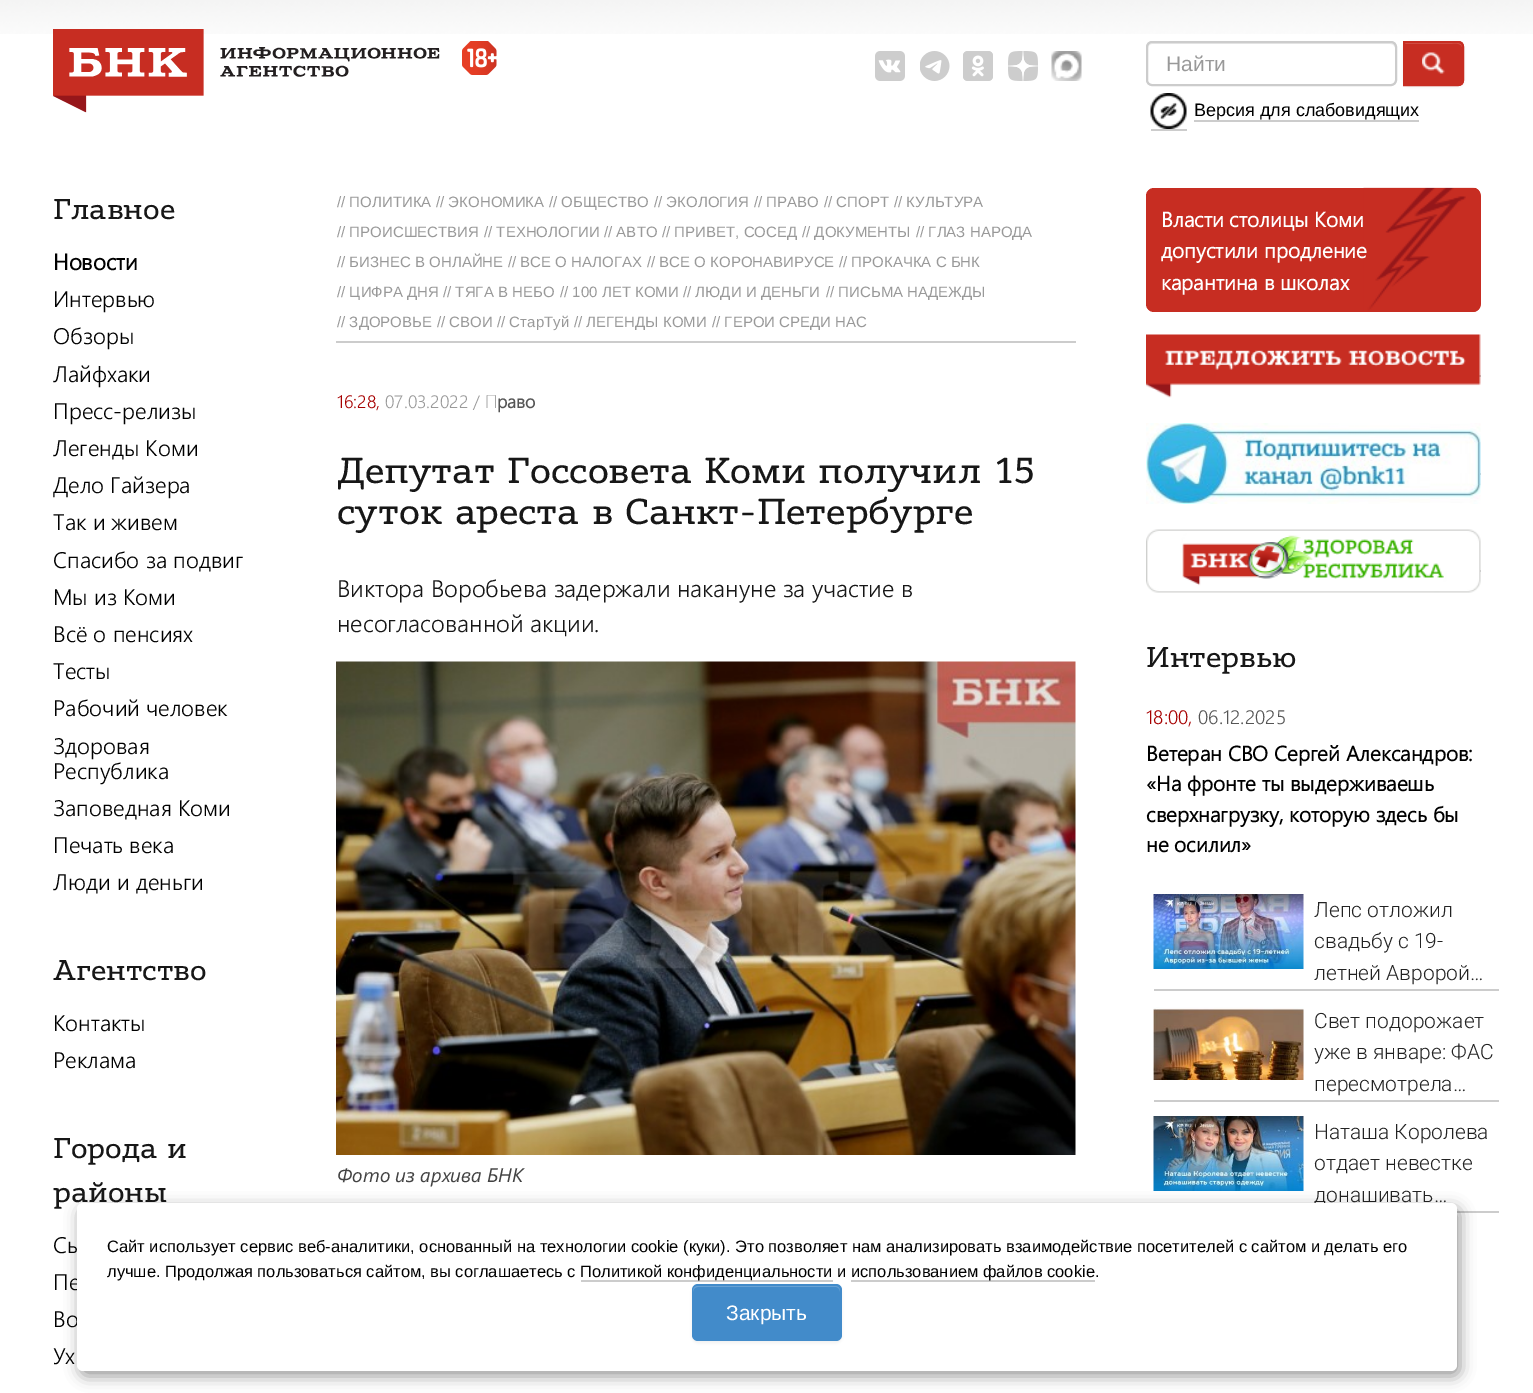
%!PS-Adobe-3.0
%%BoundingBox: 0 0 1533 1393
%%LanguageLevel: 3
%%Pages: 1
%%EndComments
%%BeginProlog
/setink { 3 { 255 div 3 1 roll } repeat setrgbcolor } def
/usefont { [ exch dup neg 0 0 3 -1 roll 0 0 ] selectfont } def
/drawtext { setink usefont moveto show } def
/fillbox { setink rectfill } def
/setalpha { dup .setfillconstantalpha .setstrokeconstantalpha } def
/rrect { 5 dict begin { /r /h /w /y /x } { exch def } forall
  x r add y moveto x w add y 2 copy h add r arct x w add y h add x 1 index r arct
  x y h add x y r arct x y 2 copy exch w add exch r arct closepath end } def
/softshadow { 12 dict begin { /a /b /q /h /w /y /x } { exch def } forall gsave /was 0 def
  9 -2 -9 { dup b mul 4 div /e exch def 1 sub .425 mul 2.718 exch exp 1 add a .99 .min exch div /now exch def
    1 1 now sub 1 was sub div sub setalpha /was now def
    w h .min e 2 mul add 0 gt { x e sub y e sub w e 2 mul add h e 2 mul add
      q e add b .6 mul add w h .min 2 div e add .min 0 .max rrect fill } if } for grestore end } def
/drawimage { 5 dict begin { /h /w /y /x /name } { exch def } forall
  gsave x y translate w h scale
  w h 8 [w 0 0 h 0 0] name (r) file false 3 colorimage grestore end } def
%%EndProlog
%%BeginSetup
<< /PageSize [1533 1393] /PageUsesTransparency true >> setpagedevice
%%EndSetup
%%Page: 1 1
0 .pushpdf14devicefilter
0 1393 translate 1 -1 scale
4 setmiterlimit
0 0 1533 1393 255 255 255 fillbox
(assets/img1.rgb) 0 0 1533 34 drawimage
(assets/img2.rgb) 53 29 387 84 drawimage
(assets/img3.rgb) 462 41 35 34 drawimage
(assets/img4.rgb) 875 51 30 30 drawimage
(assets/img5.rgb) 920 51 30 30 drawimage
(assets/img6.rgb) 963 51 30 30 drawimage
(assets/img7.rgb) 1008 51 30 30 drawimage
(assets/img8.rgb) 1051 51 31 30 drawimage
236 236 236 setink
1152 44 moveto 1390 44 lineto 1393 44 1395 46 1395 48 curveto 1395 47 lineto 1395 44 1393 42 1390 42 curveto 1153 42 lineto 1150 42 1148 44 1148 47 curveto 1148 48 lineto 1148 46 1150 44 1152 44 curveto closepath fill
204 204 204 setink
2 setlinewidth
1147 42 249 43 5 rrect stroke
(Найти) 1166 71 /LiberationSans-Regular 21 153 153 153 drawtext
0 0 0 setink
1403 42 61 45 6 1.5 0.05 softshadow
199 45 34 setink
1403 41 moveto 1458 41 lineto 1461.5 41 1464 43.5 1464 47 curveto 1464 80 lineto 1464 83.5 1461.5 86 1458 86 curveto 1403 86 lineto closepath fill
210 87 78 setink
1404 44 moveto 1449 44 lineto 1452 44 1461 42 1462 47 curveto 1462 82 lineto 1463 81 1463 80 1463 79 curveto 1463 47 lineto 1463 44 1461 42 1458 42 curveto 1404 42 lineto closepath fill
199 45 34 setink
1404 42 moveto 1458 42 lineto 1461 42 1463 44 1463 47 curveto 1463 80 lineto 1463 83 1461 85 1458 85 curveto 1404 85 lineto closepath stroke
(assets/img9.rgb) 1422 52 23 22 drawimage
1151 129 36 2 204 204 204 fillbox
1194 120 225 2 204 204 204 fillbox
(assets/img10.rgb) 1150 93 37 36 drawimage
(Версия для слабовидящих) 1194 116 /LiberationSans-Regular 18 0 0 0 drawtext
(Главное) 53 219 /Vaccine-Regular 28.5 23 23 23 drawtext
(Новости) 53 270 /SegoeUI-Bold 22.5 0 0 0 drawtext
(Интервью) 53 307 /SegoeUI-Light 22.5 0 0 0 drawtext
(Обзоры) 53 344 /SegoeUI-Light 22.5 0 0 0 drawtext
(Лайфхаки) 53 382 /SegoeUI-Light 22.5 0 0 0 drawtext
(Пресс-релизы) 53 419 /SegoeUI-Light 22.5 0 0 0 drawtext
(Легенды Коми) 53 456 /SegoeUI-Light 22.5 0 0 0 drawtext
(Дело Гайзера) 53 493 /SegoeUI-Light 22.5 0 0 0 drawtext
(Так и живем) 53 530 /SegoeUI-Light 22.5 0 0 0 drawtext
(Спасибо за подвиг) 53 568 /SegoeUI-Light 22.5 0 0 0 drawtext
(Мы из Коми) 53 605 /SegoeUI-Light 22.5 0 0 0 drawtext
(Всё о пенсиях) 53 642 /SegoeUI-Light 22.5 0 0 0 drawtext
(Тесты) 53 679 /SegoeUI-Light 22.5 0 0 0 drawtext
(Рабочий человек) 53 716 /SegoeUI-Light 22.5 0 0 0 drawtext
(Здоровая) 53 754 /SegoeUI-Light 22.5 0 0 0 drawtext
(Республика) 53 779 /SegoeUI-Light 22.5 0 0 0 drawtext
(Заповедная Коми) 53 816 /SegoeUI-Light 22.5 0 0 0 drawtext
(Печать века) 53 853 /SegoeUI-Light 22.5 0 0 0 drawtext
(Люди и деньги) 53 890 /SegoeUI-Light 22.5 0 0 0 drawtext
(Агентство) 53 980 /Vaccine-Regular 28.5 23 23 23 drawtext
(Контакты) 53 1031 /SegoeUI-Light 22.5 0 0 0 drawtext
(Реклама) 53 1068 /SegoeUI-Light 22.5 0 0 0 drawtext
(Города и) 53 1158 /Vaccine-Regular 28.5 23 23 23 drawtext
(районы) 53 1202 /Vaccine-Regular 28.5 23 23 23 drawtext
(Сы) 53 1253 /SegoeUI-Light 22.5 0 0 0 drawtext
(Пе) 53 1290 /SegoeUI-Light 22.5 0 0 0 drawtext
(Во) 53 1327 /SegoeUI-Light 22.5 0 0 0 drawtext
(Ух) 53 1364 /SegoeUI-Light 22.5 0 0 0 drawtext
336 341 740 2 204 204 204 fillbox
(// ПОЛИТИКА) 337 207 /LiberationSans-Regular 15 153 153 153 drawtext
(// ЭКОНОМИКА) 436 207 /LiberationSans-Regular 15 153 153 153 drawtext
(// ОБЩЕСТВО) 549 207 /LiberationSans-Regular 15 153 153 153 drawtext
(// ЭКОЛОГИЯ) 654 207 /LiberationSans-Regular 15 153 153 153 drawtext
(// ПРАВО) 754 207 /LiberationSans-Regular 15 153 153 153 drawtext
(// СПОРТ) 824 207 /LiberationSans-Regular 15 153 153 153 drawtext
(// КУЛЬТУРА) 894 207 /LiberationSans-Regular 15 153 153 153 drawtext
(// ПРОИСШЕСТВИЯ) 337 237 /LiberationSans-Regular 15 153 153 153 drawtext
(// ТЕХНОЛОГИИ) 484 237 /LiberationSans-Regular 15 153 153 153 drawtext
(// АВТО) 604 237 /LiberationSans-Regular 15 153 153 153 drawtext
(// ПРИВЕТ, СОСЕД) 662 237 /LiberationSans-Regular 15 153 153 153 drawtext
(// ДОКУМЕНТЫ) 802 237 /LiberationSans-Regular 15 153 153 153 drawtext
(// ГЛАЗ НАРОДА) 916 237 /LiberationSans-Regular 15 153 153 153 drawtext
(// БИЗНЕС В ОНЛАЙНЕ) 337 267 /LiberationSans-Regular 15 153 153 153 drawtext
(// ВСЕ О НАЛОГАХ) 508 267 /LiberationSans-Regular 15 153 153 153 drawtext
(// ВСЕ О КОРОНАВИРУСЕ) 647 267 /LiberationSans-Regular 15 153 153 153 drawtext
(// ПРОКАЧКА С БНК) 839 267 /LiberationSans-Regular 15 153 153 153 drawtext
(// ЦИФРА ДНЯ) 337 297 /LiberationSans-Regular 15 153 153 153 drawtext
(// ТЯГА В НЕБО) 443 297 /LiberationSans-Regular 15 153 153 153 drawtext
(// 100 ЛЕТ КОМИ) 560 297 /LiberationSans-Regular 15 153 153 153 drawtext
(// ЛЮДИ И ДЕНЬГИ) 683 297 /LiberationSans-Regular 15 153 153 153 drawtext
(// ПИСЬМА НАДЕЖДЫ) 826 297 /LiberationSans-Regular 15 153 153 153 drawtext
(// ЗДОРОВЬЕ) 337 327 /LiberationSans-Regular 15 153 153 153 drawtext
(// СВОИ) 437 327 /LiberationSans-Regular 15 153 153 153 drawtext
(// СтарТуй) 497 327 /LiberationSans-Regular 15 153 153 153 drawtext
(// ЛЕГЕНДЫ КОМИ) 574 327 /LiberationSans-Regular 15 153 153 153 drawtext
(// ГЕРОИ СРЕДИ НАС) 712 327 /LiberationSans-Regular 15 153 153 153 drawtext
(16:28,) 337 408 /SegoeUI-Light 18 166 0 0 drawtext
(07.03.2022 /) 385 408 /SegoeUI-Light 18 153 153 153 drawtext
(П) 485 408 /NotoSans-Thin 18 85 85 85 drawtext
(раво) 497 408 /SegoeUI-Bold 18 85 85 85 drawtext
(Депутат Госсовета Коми получил 15) 337 483 /Vaccine-Regular 36 23 23 23 drawtext
(суток ареста в Санкт-Петербурге) 337 524 /Vaccine-Regular 36 23 23 23 drawtext
(Виктора Воробьева задержали накануне за участие в) 337 597 /SegoeUI-Light 24 23 23 23 drawtext
(несогласованной акции.) 337 632 /SegoeUI-Light 24 23 23 23 drawtext
(assets/img11.rgb) 336 661 740 494 drawimage
(Фото из архива БНК) 337 1182 /SegoeUI-Italic 19.5 67 67 67 drawtext
199 45 34 setink
1146 188 335 124 8 rrect fill
(assets/img12.rgb) 1363 187 118 125 drawimage
(Власти столицы Коми) 1161 227 /SegoeUI-Bold 21 255 255 255 drawtext
(допустили продление) 1161 258 /SegoeUI-Bold 21 255 255 255 drawtext
(карантина в школах) 1161 290 /SegoeUI-Bold 21 255 255 255 drawtext
1479 375 2 2 204 204 204 fillbox
(assets/img13.rgb) 1146 334 335 64 drawimage
1480 473 1 2 204 204 204 fillbox
(assets/img14.rgb) 1146 423 335 81 drawimage
1480 570 1 2 204 204 204 fillbox
(assets/img15.rgb) 1146 529 335 64 drawimage
(Интервью) 1146 667 /Vaccine-Regular 28.5 23 23 23 drawtext
(18:00,) 1146 724 /SegoeUI-Light 19.5 166 0 0 drawtext
(06.12.2025) 1198 724 /SegoeUI-Light 19.5 85 85 85 drawtext
(Ветеран СВО Сергей Александров:) 1146 761 /SegoeUI-Bold 21 0 0 0 drawtext
(«На фронте ты выдерживаешь) 1146 791 /SegoeUI-Bold 21 0 0 0 drawtext
(сверхнагрузку, которую здесь бы) 1146 822 /SegoeUI-Bold 21 0 0 0 drawtext
(не осилил») 1146 852 /SegoeUI-Bold 21 0 0 0 drawtext
1154 989 345 2 204 204 204 fillbox
(assets/img16.rgb) 1153 894 151 75 drawimage
(Лепс отложил) 1314 917 /Roboto-Light 21 35 35 35 drawtext
(свадьбу с 19-) 1314 948 /Roboto-Light 21 35 35 35 drawtext
(летней Авророй…) 1314 980 /Roboto-Light 21 35 35 35 drawtext
1154 1100 345 2 204 204 204 fillbox
(assets/img17.rgb) 1153 1007 151 73 drawimage
(Свет подорожает) 1314 1028 /Roboto-Light 21 35 35 35 drawtext
(уже в январе: ФАС) 1314 1059 /Roboto-Light 21 35 35 35 drawtext
(пересмотрела…) 1314 1091 /Roboto-Light 21 35 35 35 drawtext
1457 1211 42 2 204 204 204 fillbox
(assets/img18.rgb) 1153 1116 151 75 drawimage
(Наташа Королева) 1314 1139 /Roboto-Light 21 35 35 35 drawtext
(отдает невестке) 1314 1170 /Roboto-Light 21 35 35 35 drawtext
(донашивать…) 1314 1202 /Roboto-Light 21 35 35 35 drawtext
0 0 0 setink
80 1208 1380 168 6 7.5 0.4 softshadow
255 255 255 setink
77 1203 1380 168 6 rrect fill
(Cайт использует сервис веб-аналитики, основанный на технологии cookie \(куки\). Это позволяет нам анализировать взаимодействие посетителей с сайтом и делать его) 107 1252 /LiberationSans-Regular 16.5 0 0 0 drawtext
(лучше. Продолжая пользоваться сайтом, вы соглашаетесь с) 107 1277 /LiberationSans-Regular 16.5 0 0 0 drawtext
692 1286 150 57 6 1.5 0.05 softshadow
581 1280 252 2 204 204 204 fillbox
(Политикой конфиденциальности и) 580 1277 /LiberationSans-Regular 16.5 0 0 0 drawtext
851 1280 244 2 204 204 204 fillbox
(использованием файлов cookie.) 851 1277 /LiberationSans-Regular 16.5 0 0 0 drawtext
66 139 202 setink
692 1284 150 57 6 rrect fill
104 162 213 setink
698 1287 moveto 836 1287 lineto 838 1287 840 1289 840 1292 curveto 840 1291 lineto 840 1288 838 1286 835 1286 curveto 698 1286 lineto 695 1286 693 1288 693 1291 curveto 693 1292 lineto 693 1289 695 1287 698 1287 curveto closepath fill
(Закрыть) 726 1320 /LiberationSans-Regular 21 255 255 255 drawtext
.poppdf14devicefilter showpage
%%EOF
